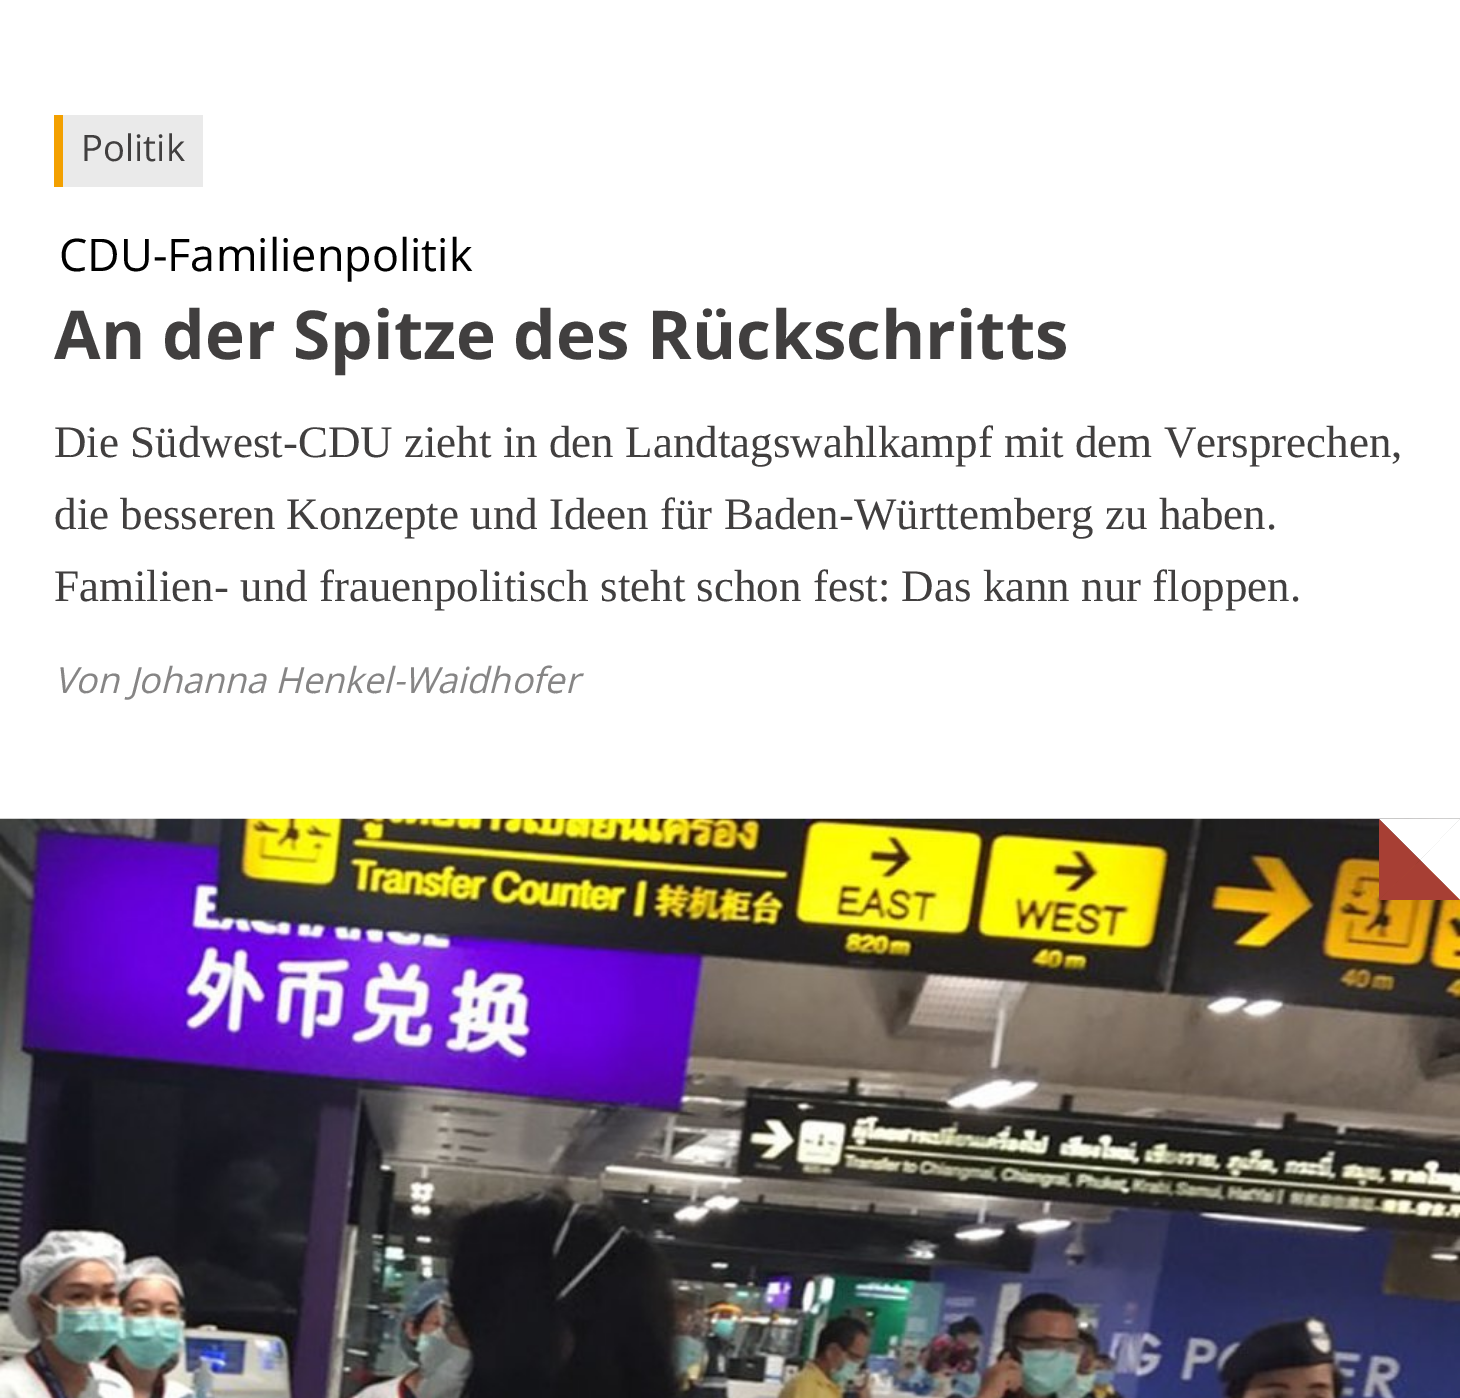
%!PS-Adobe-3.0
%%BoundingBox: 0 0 1460 1398
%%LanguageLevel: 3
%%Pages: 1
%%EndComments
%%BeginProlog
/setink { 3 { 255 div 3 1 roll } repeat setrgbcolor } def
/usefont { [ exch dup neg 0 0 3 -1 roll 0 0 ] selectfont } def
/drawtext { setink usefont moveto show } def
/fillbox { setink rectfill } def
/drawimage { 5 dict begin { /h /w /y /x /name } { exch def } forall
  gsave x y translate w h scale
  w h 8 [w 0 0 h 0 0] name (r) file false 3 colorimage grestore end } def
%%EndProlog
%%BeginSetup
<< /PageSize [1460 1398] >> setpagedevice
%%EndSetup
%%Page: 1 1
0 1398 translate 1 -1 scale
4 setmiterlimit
0 0 1460 1398 255 255 255 fillbox
63 115 140 72 234 234 234 fillbox
54 115 9 72 243 160 0 fillbox
(Politik) 81 161 /OpenSans-Regular 36.5 65 63 63 drawtext
(CDU-Familienpolitik) 59 271 /OpenSans-Regular 45 0 0 0 drawtext
(An der Spitze des Rückschritts) 54 359 /OpenSans-Bold 67.5 65 63 63 drawtext
(Die Südwest-CDU zieht in den Landtagswahlkampf mit dem Versprechen,) 54 457 /LiberationSerif-Regular 45 65 63 63 drawtext
(die besseren Konzepte und Ideen für Baden-Württemberg zu haben.) 54 529 /LiberationSerif-Regular 45 65 63 63 drawtext
(Familien- und frauenpolitisch steht schon fest: Das kann nur floppen.) 54 601 /LiberationSerif-Regular 45 65 63 63 drawtext
(Von Johanna Henkel-Waidhofer) 54 693 /OpenSans-Italic 36 134 133 133 drawtext
(assets/img1.rgb) 0 818 1460 580 drawimage
255 255 255 setink
1379 819 moveto 1460 819 lineto 1420 860 lineto closepath fill
1460 819 moveto 1460 900 lineto 1420 860 lineto closepath fill
167 63 52 setink
1460 900 moveto 1379 900 lineto 1420 860 lineto closepath fill
1379 900 moveto 1379 819 lineto 1420 860 lineto closepath fill
showpage
%%EOF
